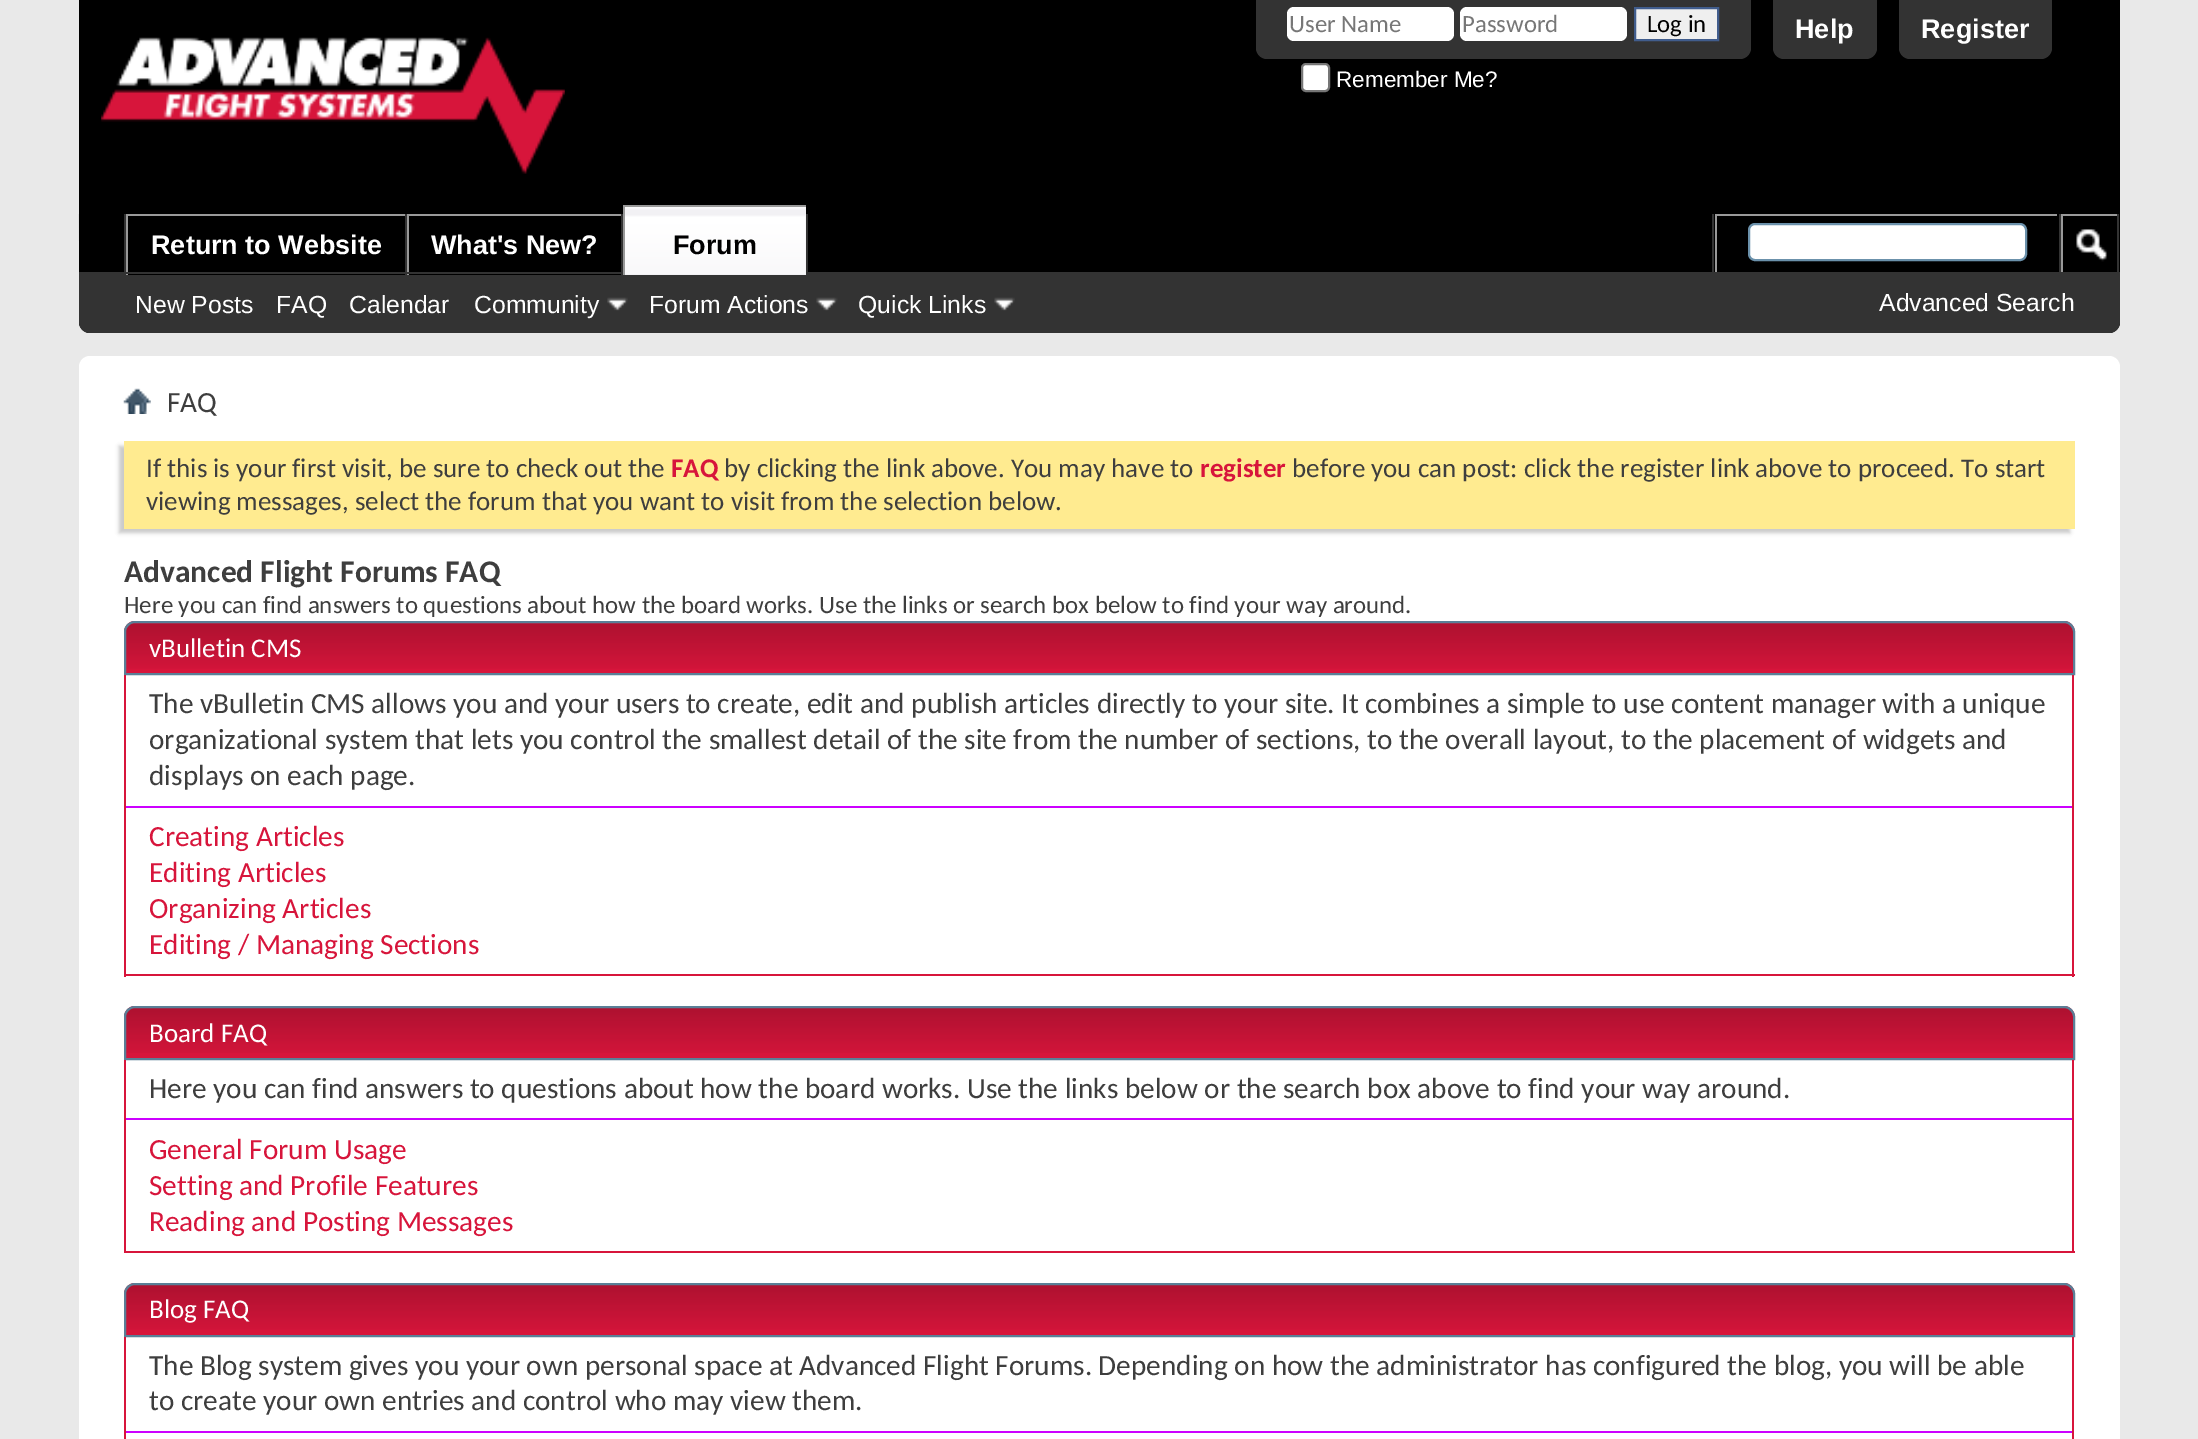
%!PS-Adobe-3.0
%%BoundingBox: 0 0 2198 1439
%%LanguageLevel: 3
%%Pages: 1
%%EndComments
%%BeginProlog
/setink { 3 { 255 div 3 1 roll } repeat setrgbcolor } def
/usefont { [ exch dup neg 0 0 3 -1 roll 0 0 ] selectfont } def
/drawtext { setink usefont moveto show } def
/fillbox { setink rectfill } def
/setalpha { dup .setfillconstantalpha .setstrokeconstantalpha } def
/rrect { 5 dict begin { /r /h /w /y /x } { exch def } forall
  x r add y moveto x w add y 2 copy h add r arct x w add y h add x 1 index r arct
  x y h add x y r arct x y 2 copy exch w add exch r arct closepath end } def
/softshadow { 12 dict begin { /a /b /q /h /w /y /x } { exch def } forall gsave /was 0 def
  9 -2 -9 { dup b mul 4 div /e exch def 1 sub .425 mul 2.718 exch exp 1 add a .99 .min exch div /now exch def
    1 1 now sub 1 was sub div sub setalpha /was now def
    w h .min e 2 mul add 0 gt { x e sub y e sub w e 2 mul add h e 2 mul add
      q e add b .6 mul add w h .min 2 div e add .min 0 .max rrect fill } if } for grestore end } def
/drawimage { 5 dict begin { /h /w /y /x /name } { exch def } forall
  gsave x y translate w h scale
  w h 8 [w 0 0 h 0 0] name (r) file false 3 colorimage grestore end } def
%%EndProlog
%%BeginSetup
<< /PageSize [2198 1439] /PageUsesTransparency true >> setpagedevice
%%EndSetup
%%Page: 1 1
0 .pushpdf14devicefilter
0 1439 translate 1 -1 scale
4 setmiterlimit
0 0 2198 1439 233 233 233 fillbox
0 0 0 setink
79 0 moveto 2120 0 lineto 2120 322 lineto 2120 328 2115 333 2109 333 curveto 90 333 lineto 84 333 79 328 79 322 curveto closepath fill
(assets/img1.rgb) 101 37 464 137 drawimage
51 51 51 setink
1256 0 moveto 1751 0 lineto 1751 48 lineto 1751 54 1746 59 1740 59 curveto 1267 59 lineto 1261 59 1256 54 1256 48 curveto closepath fill
255 255 255 setink
1287 7 167 34 7 rrect fill
(User Name) 1289 32 /Carlito-Regular 24.75 119 119 119 drawtext
255 255 255 setink
1460 7 167 34 7 rrect fill
(Password) 1462 32 /Carlito-Regular 24.75 119 119 119 drawtext
239 239 239 setink
1635 8 moveto 1718 8 lineto 1718 40 lineto 1635 40 lineto closepath gsave fill grestore
65 93 141 setink
2 setlinewidth
stroke
(Log in) 1647 32 /Carlito-Regular 24.75 0 0 0 drawtext
255 255 255 setink
1302 64 27 27 4 rrect gsave fill grestore
118 118 118 setink
stroke
(Remember Me?) 1336 87 /LiberationSans-Regular 22.5 255 255 255 drawtext
51 51 51 setink
1773 0 moveto 1877 0 lineto 1877 48 lineto 1877 54 1872 59 1866 59 curveto 1784 59 lineto 1778 59 1773 54 1773 48 curveto closepath fill
(Help) 1795 38 /LiberationSans-Bold 27 255 255 255 drawtext
51 51 51 setink
1899 0 moveto 2052 0 lineto 2052 48 lineto 2052 54 2047 59 2041 59 curveto 1910 59 lineto 1904 59 1899 54 1899 48 curveto closepath fill
(Register) 1921 38 /LiberationSans-Bold 27 255 255 255 drawtext
51 51 51 setink
79 214 moveto 2120 214 lineto 2120 322 lineto 2120 328 2115 333 2109 333 curveto 90 333 lineto 84 333 79 328 79 322 curveto closepath fill
79 214 2041 58 0 0 0 fillbox
(assets/img2.rgb) 78 214 1 27 drawimage
405 214 2 61 51 51 51 fillbox
124 214 2 61 51 51 51 fillbox
128 272 277 3 0 0 0 fillbox
126 214 279 2 153 153 153 fillbox
126 214 2 61 153 153 153 fillbox
(Return to Website) 151 254 /LiberationSans-Bold 27 255 255 255 drawtext
621 214 2 61 51 51 51 fillbox
409 272 212 3 0 0 0 fillbox
407 214 214 2 153 153 153 fillbox
407 214 2 61 153 153 153 fillbox
(What's New?) 431 254 /LiberationSans-Bold 27 255 255 255 drawtext
806 214 2 58 51 51 51 fillbox
625 207 181 68 242 241 244 fillbox
(assets/img3.rgb) 625 207 181 67 drawimage
623 205 183 2 153 153 153 fillbox
623 205 2 70 153 153 153 fillbox
(Forum) 673 254 /LiberationSans-Bold 27 0 0 0 drawtext
126 272 495 2 51 51 51 fillbox
(New Posts) 135 313 /LiberationSans-Regular 24.75 255 255 255 drawtext
(FAQ) 276 313 /LiberationSans-Regular 24.75 255 255 255 drawtext
(Calendar) 349 313 /LiberationSans-Regular 24.75 255 255 255 drawtext
(Community) 474 313 /LiberationSans-Regular 24.75 255 255 255 drawtext
(assets/img4.rgb) 607 297 21 14 drawimage
(Forum Actions) 649 313 /LiberationSans-Regular 24.75 255 255 255 drawtext
(assets/img5.rgb) 816 297 22 14 drawimage
(Quick Links) 858 313 /LiberationSans-Regular 24.75 255 255 255 drawtext
(assets/img6.rgb) 994 297 21 14 drawimage
1712 214 2 58 51 51 51 fillbox
1715 214 342 2 153 153 153 fillbox
1715 214 2 58 153 153 153 fillbox
255 255 255 setink
1749 224 277 36 6 rrect gsave fill grestore
107 145 171 setink
stroke
2117 214 2 58 51 51 51 fillbox
2059 214 2 58 51 51 51 fillbox
2061 214 56 2 153 153 153 fillbox
2061 214 2 58 153 153 153 fillbox
(assets/img7.rgb) 2076 229 31 33 drawimage
(Advanced Search) 1879 311 /LiberationSans-Regular 24.75 255 255 255 drawtext
79 356 2041 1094 11 rrect fill
(assets/img8.rgb) 123 388 28 26 drawimage
(FAQ) 167 412 /Carlito-Regular 29.25 62 62 62 drawtext
200 200 200 setink
119 446 1951 87 0 2 1 softshadow
124 441 1951 88 255 235 144 fillbox
(If this is your first visit, be sure to check out the) 146 477 /Carlito-Regular 27 62 62 62 drawtext
(FAQ) 671 477 /Carlito-Bold 27 215 21 59 drawtext
(by clicking the link above. You may have to) 724 477 /Carlito-Regular 27 62 62 62 drawtext
(register) 1200 477 /Carlito-Bold 27 215 21 59 drawtext
(before you can post: click the register link above to proceed. To start) 1292 477 /Carlito-Regular 27 62 62 62 drawtext
(viewing messages, select the forum that you want to visit from the selection below.) 146 510 /Carlito-Regular 27 62 62 62 drawtext
(Advanced Flight Forums FAQ) 124 582 /Carlito-Bold 31.5 62 62 62 drawtext
(Here you can find answers to questions about how the board works. Use the links or search box below to find your way around.) 124 613 /Carlito-Regular 24.85 62 62 62 drawtext
215 21 59 setink
135 621 moveto 2064 621 lineto 2070 621 2075 626 2075 632 curveto 2075 675 lineto 124 675 lineto 124 632 lineto 124 626 129 621 135 621 curveto closepath fill
(assets/img9.rgb) 124 623 1951 46 drawimage
90 127 151 setink
135 622 moveto 2064 622 lineto 2069.5 622 2074 626.5 2074 632 curveto 2074 674 lineto 125 674 lineto 125 632 lineto 125 626.5 129.5 622 135 622 curveto closepath stroke
(vBulletin CMS) 149 657 /Carlito-Regular 27 255 255 255 drawtext
2072 675 2 302 215 21 59 fillbox
124 974 1951 2 215 21 59 fillbox
124 675 2 302 215 21 59 fillbox
(The vBulletin CMS allows you and your users to create, edit and publish articles directly to your site. It combines a simple to use content manager with a unique) 149 713 /Carlito-Regular 29.25 62 62 62 drawtext
(organizational system that lets you control the smallest detail of the site from the number of sections, to the overall layout, to the placement of widgets and) 149 749 /Carlito-Regular 29.25 62 62 62 drawtext
(displays on each page.) 149 785 /Carlito-Regular 29.25 62 62 62 drawtext
126 806 1946 2 204 0 255 fillbox
(Creating Articles) 149 846 /Carlito-Regular 29.25 215 21 59 drawtext
(Editing Articles) 149 882 /Carlito-Regular 29.25 215 21 59 drawtext
(Organizing Articles) 149 918 /Carlito-Regular 29.25 215 21 59 drawtext
(Editing / Managing Sections) 149 954 /Carlito-Regular 29.25 215 21 59 drawtext
135 1006 moveto 2064 1006 lineto 2070 1006 2075 1011 2075 1017 curveto 2075 1060 lineto 124 1060 lineto 124 1017 lineto 124 1011 129 1006 135 1006 curveto closepath fill
(assets/img10.rgb) 124 1008 1951 45 drawimage
90 127 151 setink
135 1007 moveto 2064 1007 lineto 2069.5 1007 2074 1011.5 2074 1017 curveto 2074 1059 lineto 125 1059 lineto 125 1017 lineto 125 1011.5 129.5 1007 135 1007 curveto closepath stroke
(Board FAQ) 149 1042 /Carlito-Regular 27 255 255 255 drawtext
2072 1060 2 193 215 21 59 fillbox
124 1251 1951 2 215 21 59 fillbox
124 1060 2 193 215 21 59 fillbox
(Here you can find answers to questions about how the board works. Use the links below or the search box above to find your way around.) 149 1098 /Carlito-Regular 29.25 62 62 62 drawtext
126 1118 1946 2 204 0 255 fillbox
(General Forum Usage) 149 1159 /Carlito-Regular 29.25 215 21 59 drawtext
(Setting and Profile Features) 149 1195 /Carlito-Regular 29.25 215 21 59 drawtext
(Reading and Posting Messages) 149 1231 /Carlito-Regular 29.25 215 21 59 drawtext
135 1283 moveto 2064 1283 lineto 2070 1283 2075 1288 2075 1294 curveto 2075 1337 lineto 124 1337 lineto 124 1294 lineto 124 1288 129 1283 135 1283 curveto closepath fill
(assets/img11.rgb) 124 1284 1951 46 drawimage
90 127 151 setink
135 1284 moveto 2064 1284 lineto 2069.5 1284 2074 1288.5 2074 1294 curveto 2074 1336 lineto 125 1336 lineto 125 1294 lineto 125 1288.5 129.5 1284 135 1284 curveto closepath stroke
(Blog FAQ) 149 1318 /Carlito-Regular 27 255 255 255 drawtext
2072 1337 2 102 215 21 59 fillbox
124 1337 2 102 215 21 59 fillbox
(The Blog system gives you your own personal space at Advanced Flight Forums. Depending on how the administrator has configured the blog, you will be able) 149 1375 /Carlito-Regular 29.25 62 62 62 drawtext
(to create your own entries and control who may view them.) 149 1410 /Carlito-Regular 29.25 62 62 62 drawtext
126 1431 1946 2 204 0 255 fillbox
.poppdf14devicefilter showpage
%%EOF
